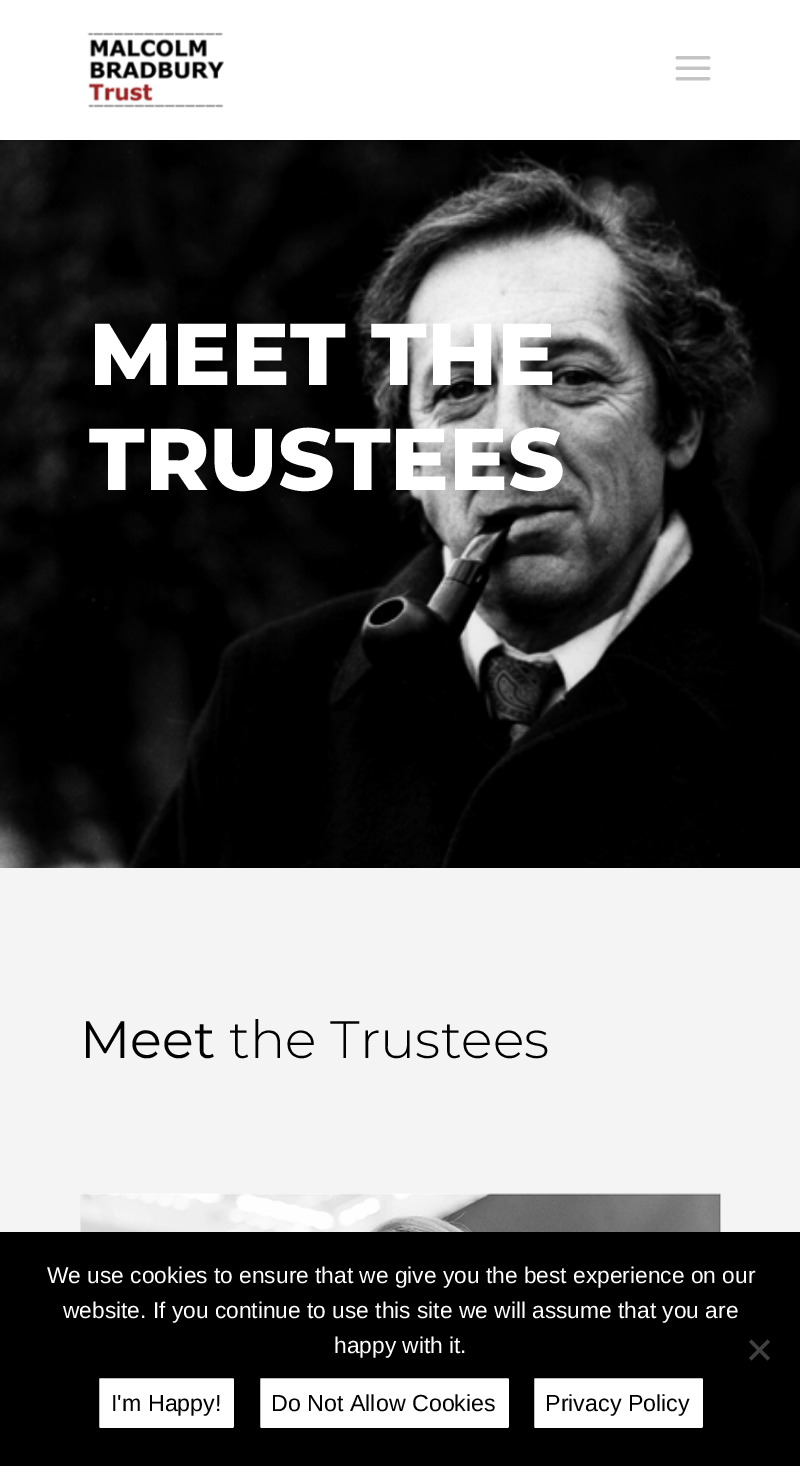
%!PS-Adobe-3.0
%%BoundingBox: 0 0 800 1466
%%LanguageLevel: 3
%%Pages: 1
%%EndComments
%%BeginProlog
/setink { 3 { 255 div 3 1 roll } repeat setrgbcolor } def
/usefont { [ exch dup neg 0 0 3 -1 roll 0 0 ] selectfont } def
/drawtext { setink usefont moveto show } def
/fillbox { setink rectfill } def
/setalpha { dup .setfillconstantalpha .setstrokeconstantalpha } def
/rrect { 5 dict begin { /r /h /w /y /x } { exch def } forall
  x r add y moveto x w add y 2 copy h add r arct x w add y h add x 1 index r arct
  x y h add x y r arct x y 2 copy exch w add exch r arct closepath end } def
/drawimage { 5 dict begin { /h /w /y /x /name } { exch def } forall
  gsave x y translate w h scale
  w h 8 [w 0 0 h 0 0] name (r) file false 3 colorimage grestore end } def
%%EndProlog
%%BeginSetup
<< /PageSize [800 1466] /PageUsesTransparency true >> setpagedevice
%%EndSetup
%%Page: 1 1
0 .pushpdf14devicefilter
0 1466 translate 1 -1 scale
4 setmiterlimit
0 0 800 1466 255 255 255 fillbox
(assets/img3.rgb) 0 140 800 728 drawimage
0.1 setalpha
0 0 0 setink
0 140 moveto 0 142 lineto 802 142 lineto 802 2 lineto 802 140 lineto closepath fill
1 setalpha
(assets/img1.rgb) 87 32 138 76 drawimage
(assets/img2.rgb) 675 56 36 25 drawimage
(MEET THE) 89 385 /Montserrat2-Thin 87.5 255 255 255 drawtext
(TRUSTEES) 89 490 /Montserrat2-Thin 87.5 255 255 255 drawtext
0 868 800 364 244 244 244 fillbox
(Meet) 80 1058 /Montserrat-Regular 52.5 0 0 0 drawtext
(the Trustees) 229 1058 /Montserrat-Thin 52.5 0 0 0 drawtext
(assets/img4.rgb) 80 1193 641 39 drawimage
0 1232 800 234 0 0 0 fillbox
(We use cookies to ensure that we give you the best experience on our) 47 1283 /LiberationSans-Regular 22.75 255 255 255 drawtext
(website. If you continue to use this site we will assume that you are) 63 1318 /LiberationSans-Regular 22.75 255 255 255 drawtext
(happy with it.) 334 1353 /LiberationSans-Regular 22.75 255 255 255 drawtext
64 64 64 setink
767.5 1339.5 moveto 770 1342 lineto 751.5 1360.5 lineto 749 1358 lineto closepath fill
749 1342 moveto 751.5 1339.5 lineto 770 1358 lineto 767.5 1360.5 lineto closepath fill
255 255 255 setink
97 1376 139 54 3 rrect gsave fill grestore
0 0 0 setink
4 setlinewidth
stroke
(I'm Happy!) 111 1411 /LiberationSans-Regular 23.25 0 0 0 drawtext
255 255 255 setink
258 1376 253 54 3 rrect gsave fill grestore
0 0 0 setink
stroke
(Do Not Allow Cookies) 271 1411 /LiberationSans-Regular 23.25 0 0 0 drawtext
255 255 255 setink
532 1376 173 54 3 rrect gsave fill grestore
0 0 0 setink
stroke
(Privacy Policy) 545 1411 /LiberationSans-Regular 23.25 0 0 0 drawtext
.poppdf14devicefilter showpage
%%EOF
